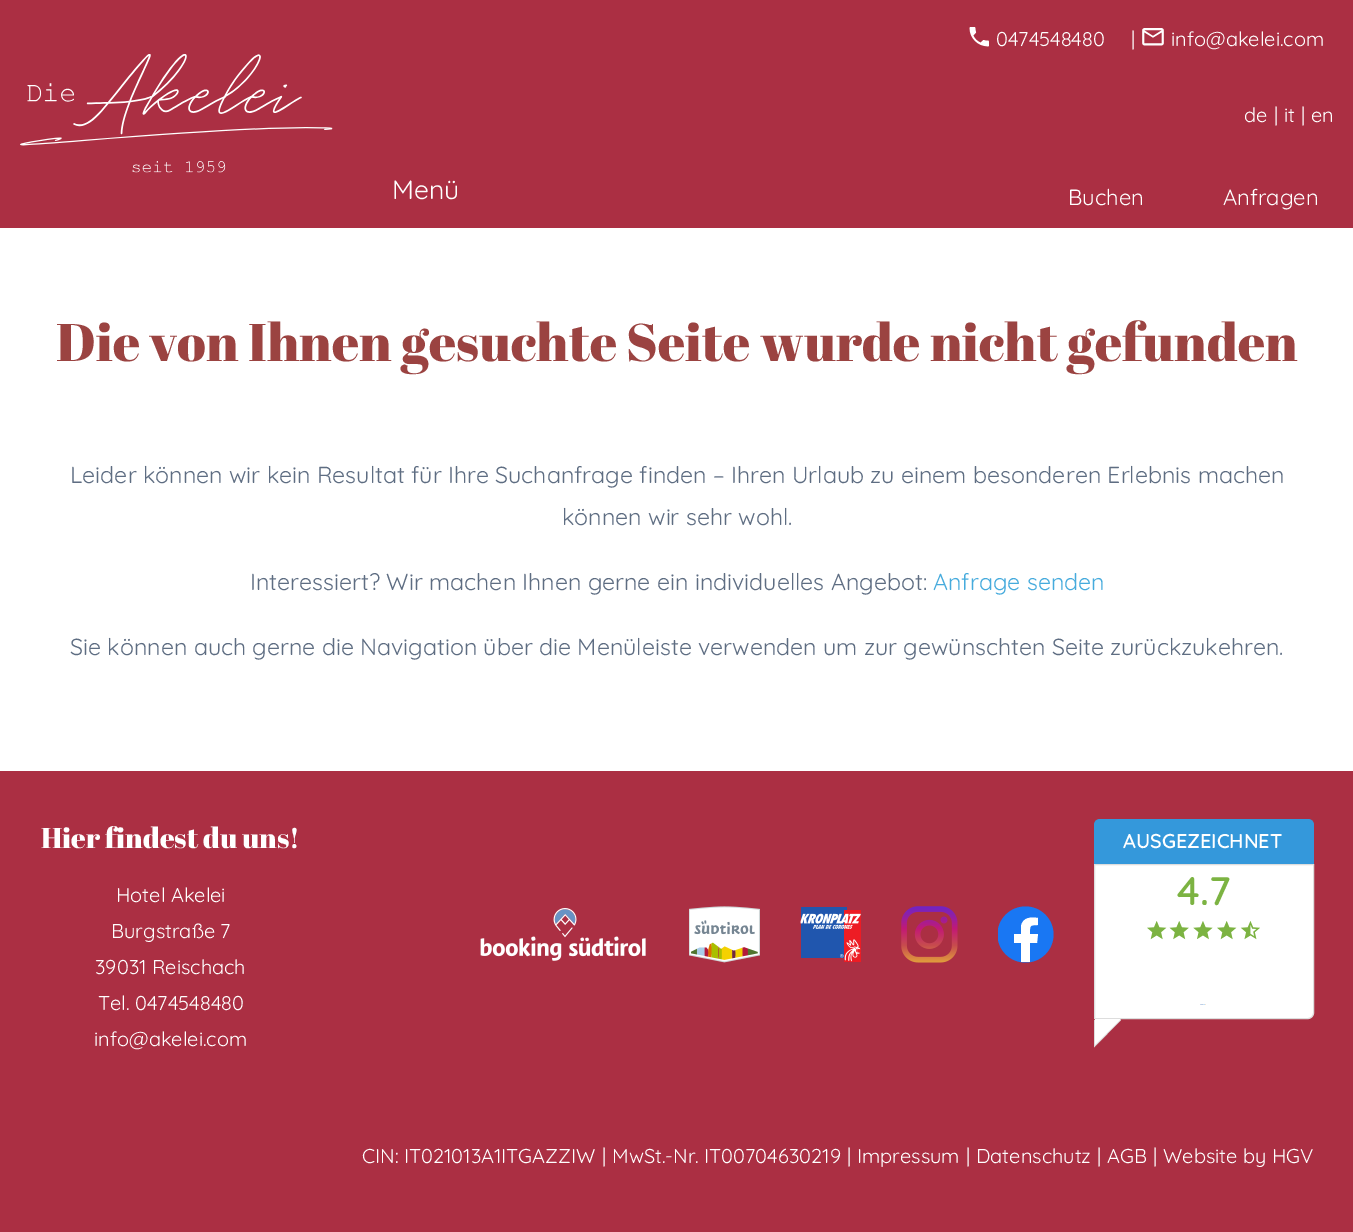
%!PS-Adobe-3.0
%%BoundingBox: 0 0 1353 1232
%%LanguageLevel: 3
%%Pages: 1
%%EndComments
%%BeginProlog
/setink { 3 { 255 div 3 1 roll } repeat setrgbcolor } def
/usefont { [ exch dup neg 0 0 3 -1 roll 0 0 ] selectfont } def
/drawtext { setink usefont moveto show } def
/fillbox { setink rectfill } def
/disc { newpath 0 360 arc closepath } def
/drawimage { 5 dict begin { /h /w /y /x /name } { exch def } forall
  gsave x y translate w h scale
  w h 8 [w 0 0 h 0 0] name (r) file false 3 colorimage grestore end } def
%%EndProlog
%%BeginSetup
<< /PageSize [1353 1232] >> setpagedevice
%%EndSetup
%%Page: 1 1
0 1232 translate 1 -1 scale
4 setmiterlimit
0 0 1353 1232 255 255 255 fillbox
0 0 1353 228 171 47 67 fillbox
(assets/img1.rgb) 20 54 313 119 drawimage
(assets/img2.rgb) 969 27 20 20 drawimage
(0474548480) 996 46 /Quicksand-Light 20 255 255 255 drawtext
(|) 1131 46 /Quicksand-Light 20 255 255 255 drawtext
(assets/img3.rgb) 1142 28 22 18 drawimage
(info@akelei.com) 1171 46 /Quicksand-Light 20 255 255 255 drawtext
(de) 1244 122 /Quicksand-Light 20 255 255 255 drawtext
(|) 1274 122 /Quicksand-Light 20 255 255 255 drawtext
(it) 1284 122 /Quicksand-Light 20 255 255 255 drawtext
(|) 1301 122 /Quicksand-Light 20 255 255 255 drawtext
(en) 1311 122 /Quicksand-Light 20 255 255 255 drawtext
(Menü) 392 199 /Quicksand-Light 26.5 255 255 255 drawtext
(Buchen) 1068 205 /Quicksand-Light 22 255 255 255 drawtext
(Anfragen) 1223 205 /Quicksand-Light 22 255 255 255 drawtext
(Die von Ihnen gesuchte Seite wurde nicht gefunden) 56 361 /AbrilFatface-Regular 52.8 155 67 65 drawtext
(Leider können wir kein Resultat für Ihre Suchanfrage finden – Ihren Urlaub zu einem besonderen Erlebnis machen) 70 483 /Quicksand-Light 23.2 94 109 130 drawtext
(können wir sehr wohl.) 562 525 /Quicksand-Light 23.2 94 109 130 drawtext
(Interessiert? Wir machen Ihnen gerne ein individuelles Angebot:) 250 590 /Quicksand-Light 23.2 94 109 130 drawtext
(Anfrage senden) 933 590 /Quicksand-Light 23.2 70 171 221 drawtext
(Sie können auch gerne die Navigation über die Menüleiste verwenden um zur gewünschten Seite zurückzukehren.) 70 655 /Quicksand-Light 23.2 94 109 130 drawtext
0 771 1353 461 171 47 67 fillbox
(Hier findest du uns!) 41 848 /AbrilFatface-Regular 28.5 255 255 255 drawtext
(Hotel Akelei) 116 902 /Quicksand-Light 20 255 255 255 drawtext
(Burgstraße 7) 111 938 /Quicksand-Light 20 255 255 255 drawtext
(39031 Reischach) 95 974 /Quicksand-Light 20 255 255 255 drawtext
(Tel. 0474548480) 98 1010 /Quicksand-Light 20 255 255 255 drawtext
(info@akelei.com) 94 1046 /Quicksand-Light 20 255 255 255 drawtext
52 152 219 setink
1100 819 moveto 1308 819 lineto 1311.5 819 1314 821.5 1314 825 curveto 1314 864 lineto 1094 864 lineto 1094 825 lineto 1094 821.5 1096.5 819 1100 819 curveto closepath fill
(AUSGEZEICHNET) 1123 848 /Quicksand-SemiBold 20 255 255 255 drawtext
1094.5 864.5 moveto 1313.5 864.5 lineto 1313.5 1013 lineto 1313.5 1016 1311 1018.5 1308 1018.5 curveto 1094.5 1018.5 lineto closepath gsave fill grestore
221 221 221 setink
stroke
(4.7) 1177 905 /Quicksand-SemiBold 40 124 179 66 drawtext
(assets/img4.rgb) 1147 921 20 19 drawimage
(assets/img5.rgb) 1169 921 20 19 drawimage
(assets/img6.rgb) 1193 921 20 19 drawimage
(assets/img4.rgb) 1217 921 20 19 drawimage
(assets/img7.rgb) 1240 921 20 19 drawimage
(assets/img8.rgb) 1200 1004 6 1 drawimage
221 221 221 setink
1094 1020 moveto 1121 1020 lineto 1094 1047.5 lineto closepath fill
255 255 255 setink
1095 1019 moveto 1121 1019 lineto 1095 1045 lineto closepath fill
(assets/img9.rgb) 480 908 166 53 drawimage
(assets/img10.rgb) 689 906 71 57 drawimage
(assets/img11.rgb) 800 907 61 55 drawimage
(assets/img12.rgb) 901 906 57 57 drawimage
gsave
998 906 56 57 rectclip
25 119 243 setink
1025.5 934.5 28 disc fill
grestore
1037 943 moveto 1038 934 lineto 1030 934 lineto 1030 926 1029 925 1038 925 curveto 1038 918 lineto 1031 917 1023 917 1021 926 curveto 1021 934 lineto 1014 934 lineto 1014 943 lineto 1021 943 lineto 1021 962 lineto 1030 962 lineto 1030 943 lineto closepath fill
(CIN: IT021013A1ITGAZZIW) 362 1163 /Quicksand-Light 20 255 255 255 drawtext
(|) 602 1163 /Quicksand-Light 20 255 255 255 drawtext
(MwSt.-Nr. IT00704630219) 612 1163 /Quicksand-Light 20 255 255 255 drawtext
(|) 847 1163 /Quicksand-Light 20 255 255 255 drawtext
(Impressum) 857 1163 /Quicksand-Light 20 255 255 255 drawtext
(|) 966 1163 /Quicksand-Light 20 255 255 255 drawtext
(Datenschutz) 976 1163 /Quicksand-Light 20 255 255 255 drawtext
(|) 1097 1163 /Quicksand-Light 20 255 255 255 drawtext
(AGB) 1107 1163 /Quicksand-Light 20 255 255 255 drawtext
(|) 1153 1163 /Quicksand-Light 20 255 255 255 drawtext
(Website by HGV) 1163 1163 /Quicksand-Light 20 255 255 255 drawtext
showpage
%%EOF
